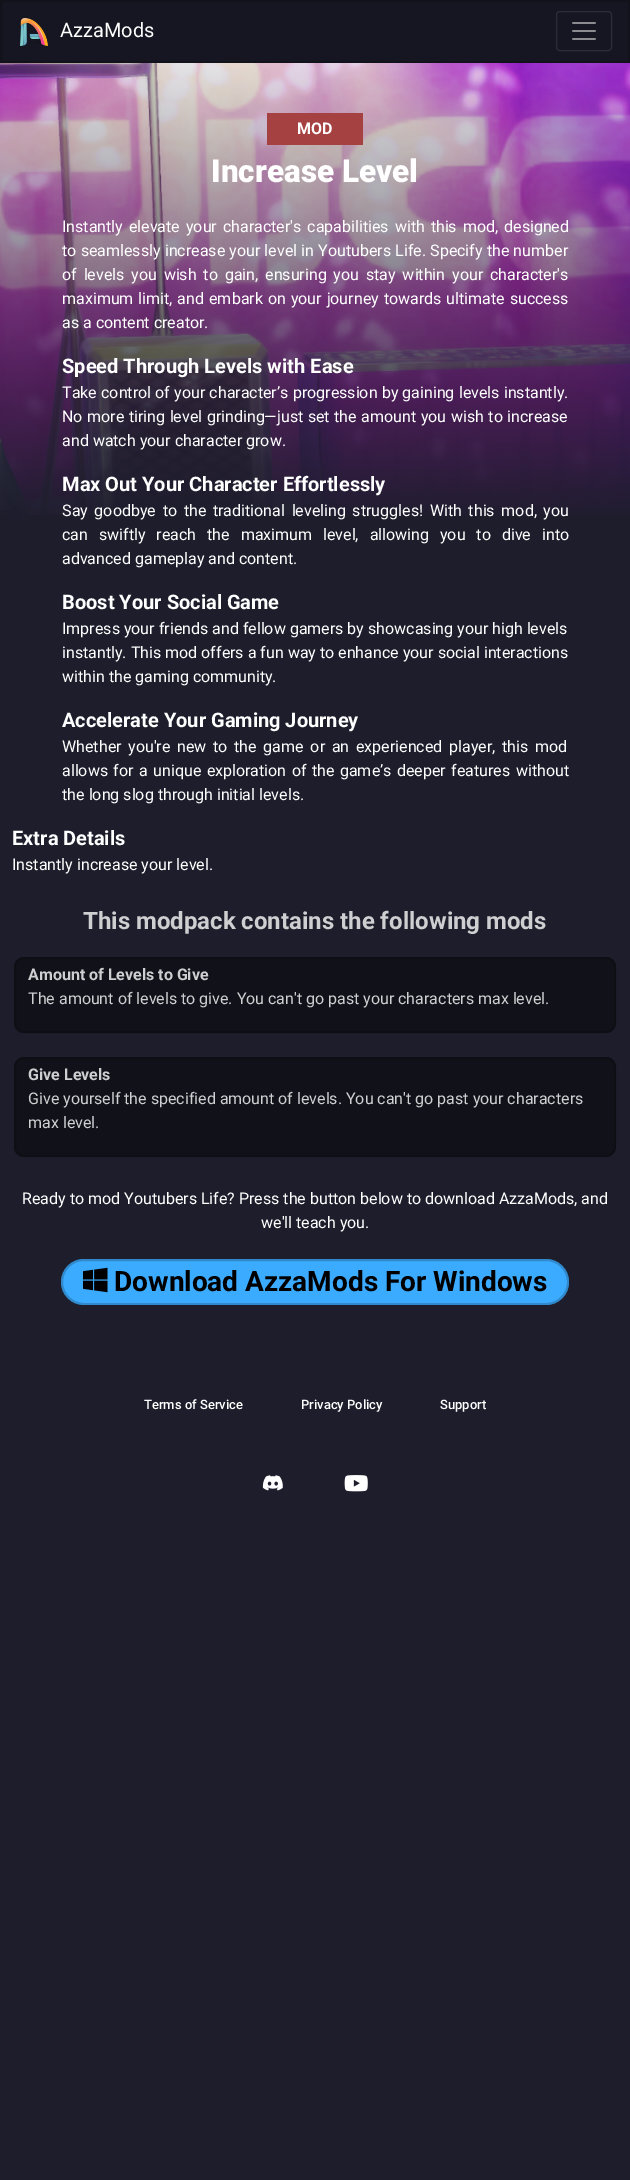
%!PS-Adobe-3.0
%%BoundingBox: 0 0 630 2180
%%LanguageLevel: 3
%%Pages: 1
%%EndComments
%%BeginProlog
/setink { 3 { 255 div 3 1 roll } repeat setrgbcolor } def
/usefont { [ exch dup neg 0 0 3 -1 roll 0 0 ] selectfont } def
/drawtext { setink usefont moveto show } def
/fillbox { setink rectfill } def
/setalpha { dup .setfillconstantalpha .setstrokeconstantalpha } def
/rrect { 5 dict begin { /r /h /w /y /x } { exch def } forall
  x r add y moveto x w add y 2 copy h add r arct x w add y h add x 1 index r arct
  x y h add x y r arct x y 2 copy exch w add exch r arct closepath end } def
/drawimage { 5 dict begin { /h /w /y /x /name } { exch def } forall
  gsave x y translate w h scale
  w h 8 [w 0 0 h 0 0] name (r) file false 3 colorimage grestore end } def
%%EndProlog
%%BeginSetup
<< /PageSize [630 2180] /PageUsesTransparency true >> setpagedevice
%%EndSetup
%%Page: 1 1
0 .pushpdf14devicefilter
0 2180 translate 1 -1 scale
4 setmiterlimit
0 0 630 2180 29 29 44 fillbox
22 22 34 setink
1 1 moveto 629 1 lineto 629 62 lineto 1 62 lineto closepath gsave fill grestore
18 18 27 setink
2 setlinewidth
stroke
(assets/img1.rgb) 20 18 28 28 drawimage
(AzzaMods) 60 37 /Roboto-Regular 20 255 255 255 drawtext
45 45 56 setink
1 setlinewidth
556.5 11.5 55 39 3.5 rrect stroke
(assets/img2.rgb) 572 22 24 18 drawimage
(assets/img3.rgb) 0 63 630 452 drawimage
267 113 96 32 165 65 65 fillbox
(MOD) 297 134 /Roboto-Bold 16 255 255 255 drawtext
(Increase Level) 211 182 /Roboto-Black 31.5 255 255 255 drawtext
/Roboto-Regular 16 usefont
62 232 moveto 2 0 32 (Instantly elevate your character's capabilities with this mod, designed) widthshow
62 256 moveto 0.25 0 32 (to seamlessly increase your level in Youtubers Life. Specify the number) widthshow
62 280 moveto 2.9 0 32 (of levels you wish to gain, ensuring you stay within your character's) widthshow
62 304 moveto 1 0 32 (maximum limit, and embark on your journey towards ultimate success) widthshow
(as a content creator.) 62 328 /Roboto-Regular 16 255 255 255 drawtext
(Speed Through Levels with Ease) 62 373 /Roboto-Bold 20 255 255 255 drawtext
/Roboto-Regular 16 usefont
62 398 moveto 0.25 0 32 (Take control of your character’s progression by gaining levels instantly.) widthshow
62 422 moveto 0.6 0 32 (No more tiring level grinding—just set the amount you wish to increase) widthshow
(and watch your character grow.) 62 446 /Roboto-Regular 16 255 255 255 drawtext
(Max Out Your Character Effortlessly) 62 491 /Roboto-Bold 20 255 255 255 drawtext
/Roboto-Regular 16 usefont
62 516 moveto 2.75 0 32 (Say goodbye to the traditional leveling struggles! With this mod, you) widthshow
62 540 moveto 7 0 32 (can swiftly reach the maximum level, allowing you to dive into) widthshow
(advanced gameplay and content.) 62 564 /Roboto-Regular 16 255 255 255 drawtext
(Boost Your Social Game) 62 609 /Roboto-Bold 20 255 255 255 drawtext
(Impress your friends and fellow gamers by showcasing your high levels) 62 634 /Roboto-Regular 16 255 255 255 drawtext
(instantly. This mod offers a fun way to enhance your social interactions) 62 658 /Roboto-Regular 16 255 255 255 drawtext
(within the gaming community.) 62 682 /Roboto-Regular 16 255 255 255 drawtext
(Accelerate Your Gaming Journey) 62 727 /Roboto-Bold 20 255 255 255 drawtext
/Roboto-Regular 16 usefont
62 752 moveto 2.75 0 32 (Whether you're new to the game or an experienced player, this mod) widthshow
62 776 moveto 1.5 0 32 (allows for a unique exploration of the game’s deeper features without) widthshow
(the long slog through initial levels.) 62 800 /Roboto-Regular 16 255 255 255 drawtext
(Extra Details) 12 845 /Roboto-Bold 20 255 255 255 drawtext
(Instantly increase your level.) 12 870 /Roboto-Regular 16 255 255 255 drawtext
(This modpack contains the following mods) 83 929 /Roboto-Bold 24 207 207 209 drawtext
17 17 26 setink
14 957 602 76 10 rrect fill
0.2 setalpha
0 0 0 setink
2 setlinewidth
15 958 600 74 9 rrect stroke
1 setalpha
(Amount of Levels to Give) 28 980 /Roboto-Bold 16 207 207 209 drawtext
(The amount of levels to give. You can't go past your characters max level.) 28 1004 /Roboto-Regular 16 207 207 209 drawtext
17 17 26 setink
14 1057 602 100 10 rrect fill
0.2 setalpha
0 0 0 setink
15 1058 600 98 9 rrect stroke
1 setalpha
(Give Levels) 28 1080 /Roboto-Bold 16 207 207 209 drawtext
(Give yourself the specified amount of levels. You can't go past your characters) 28 1104 /Roboto-Regular 16 207 207 209 drawtext
(max level.) 28 1128 /Roboto-Regular 16 207 207 209 drawtext
(Ready to mod Youtubers Life? Press the button below to download AzzaMods, and) 22 1204 /Roboto-Regular 16 255 255 255 drawtext
(we'll teach you.) 261 1228 /Roboto-Regular 16 255 255 255 drawtext
59 171 255 setink
61 1259 508 46 23 rrect fill
0.2 setalpha
0 0 0 setink
62 1260 506 44 22 rrect stroke
1 setalpha
(assets/img4.rgb) 83 1267 25 26 drawimage
(Download AzzaMods For Windows) 114 1291 /Roboto-Bold 28 0 0 0 drawtext
(Terms of Service) 144 1409 /Roboto-Medium 13 255 255 255 drawtext
(Privacy Policy) 301 1409 /Roboto-Medium 13 255 255 255 drawtext
(Support) 440 1409 /Roboto-Medium 13 255 255 255 drawtext
(assets/img5.rgb) 262 1475 21 16 drawimage
(assets/img6.rgb) 344 1475 24 17 drawimage
.poppdf14devicefilter showpage
%%EOF
